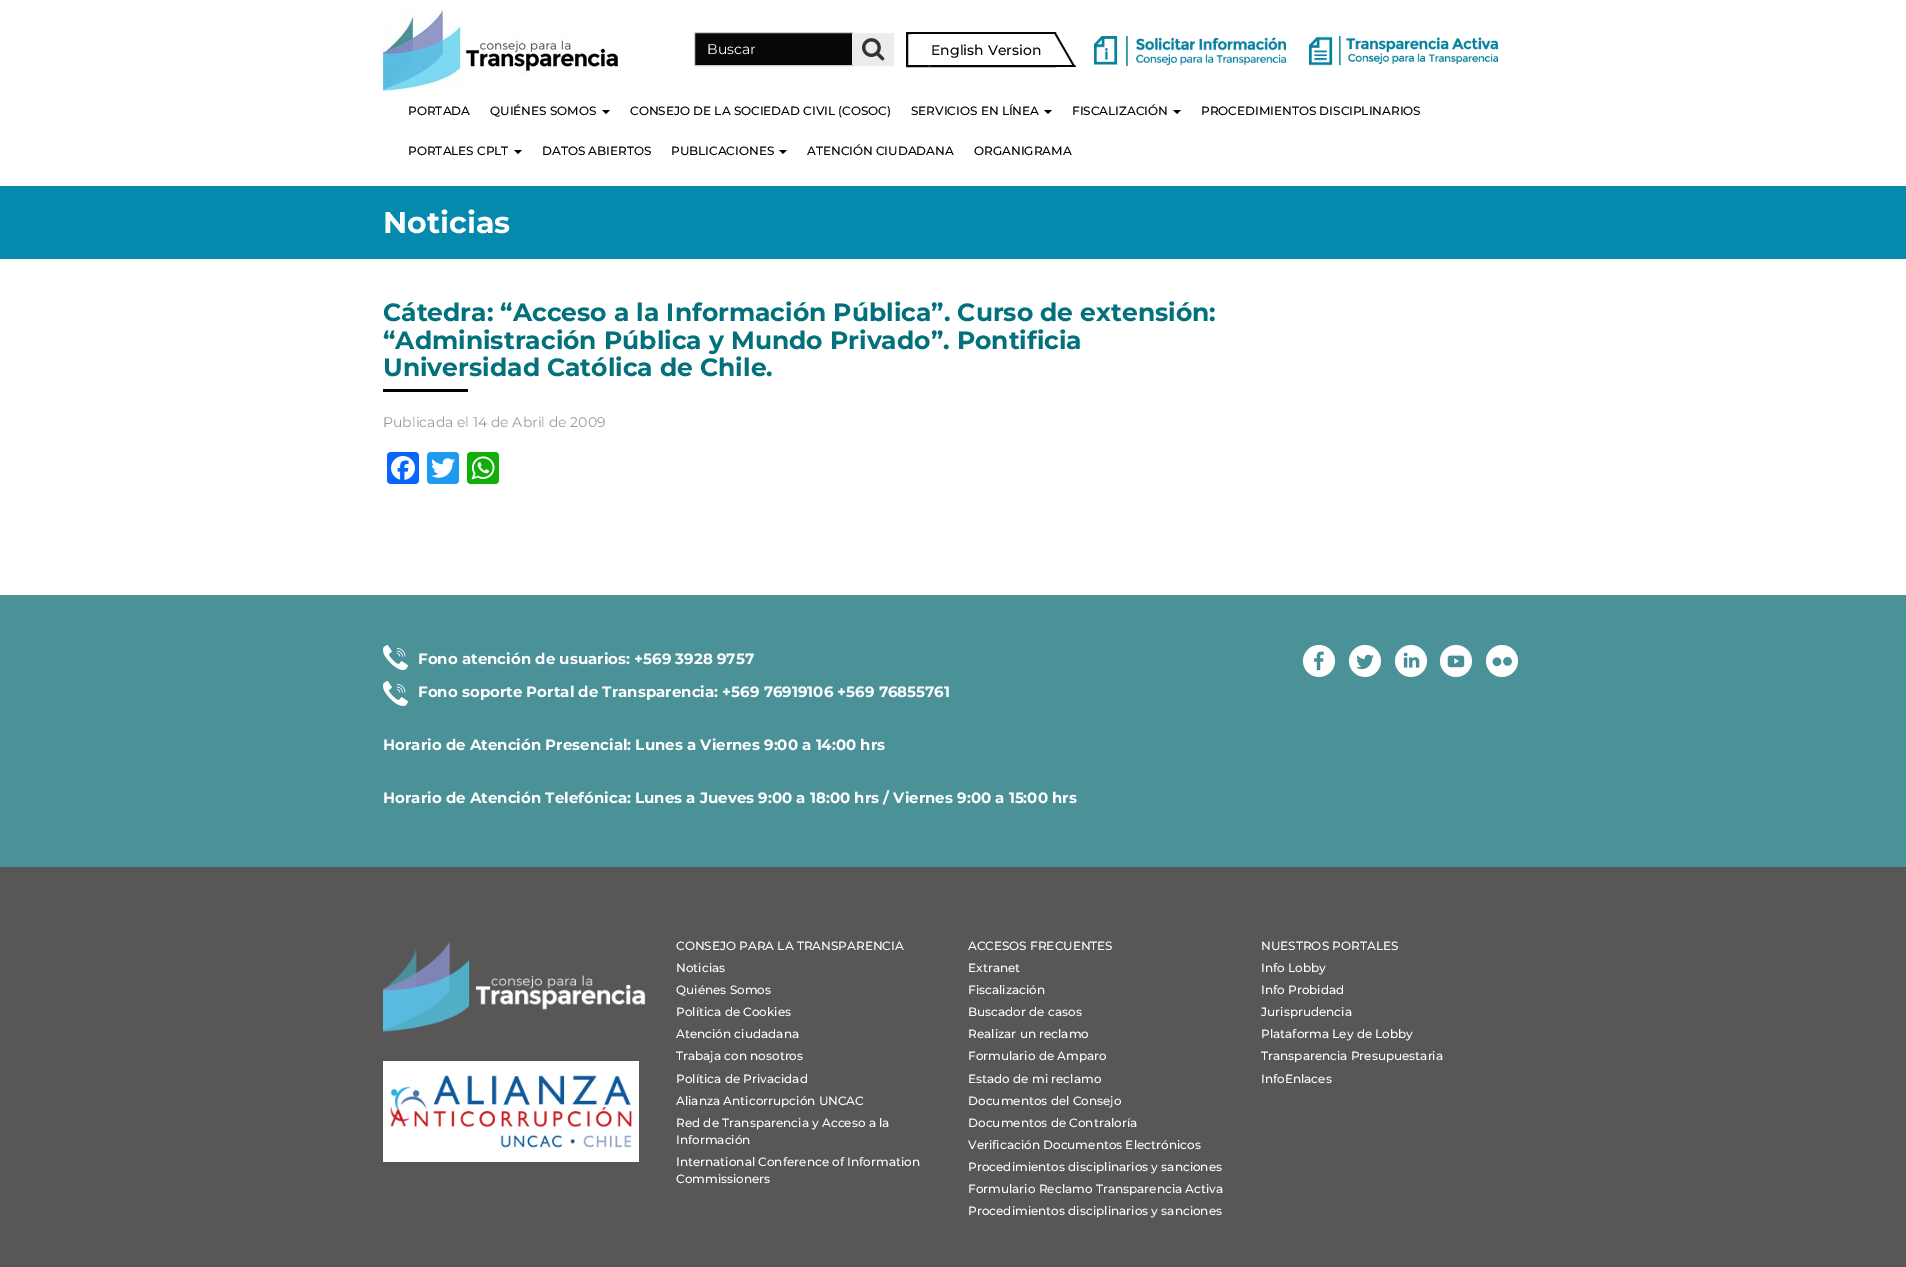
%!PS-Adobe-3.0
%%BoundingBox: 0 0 1906 1267
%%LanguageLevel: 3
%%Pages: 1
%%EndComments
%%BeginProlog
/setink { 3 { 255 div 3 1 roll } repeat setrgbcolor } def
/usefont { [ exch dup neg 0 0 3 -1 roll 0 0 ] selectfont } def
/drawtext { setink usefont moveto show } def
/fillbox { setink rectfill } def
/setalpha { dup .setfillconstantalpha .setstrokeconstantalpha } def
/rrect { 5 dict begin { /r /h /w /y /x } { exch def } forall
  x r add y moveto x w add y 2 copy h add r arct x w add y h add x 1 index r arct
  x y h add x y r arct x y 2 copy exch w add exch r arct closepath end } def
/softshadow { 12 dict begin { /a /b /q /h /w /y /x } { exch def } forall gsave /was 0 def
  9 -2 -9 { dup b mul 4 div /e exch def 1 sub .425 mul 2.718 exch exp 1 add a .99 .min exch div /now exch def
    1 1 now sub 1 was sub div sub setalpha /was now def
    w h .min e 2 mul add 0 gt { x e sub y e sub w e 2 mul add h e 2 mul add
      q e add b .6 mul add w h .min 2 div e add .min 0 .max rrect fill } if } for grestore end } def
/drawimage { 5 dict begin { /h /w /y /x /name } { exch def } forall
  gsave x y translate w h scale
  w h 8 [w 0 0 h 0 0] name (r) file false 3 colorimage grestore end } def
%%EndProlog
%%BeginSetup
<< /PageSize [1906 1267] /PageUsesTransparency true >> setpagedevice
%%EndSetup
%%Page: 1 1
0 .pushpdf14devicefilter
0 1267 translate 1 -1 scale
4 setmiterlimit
0 0 1906 1267 255 255 255 fillbox
(assets/img1.rgb) 383 10 235 81 drawimage
7 7 7 setink
694.5 32.5 moveto 852.5 32.5 lineto 852.5 65.5 lineto 694.5 65.5 lineto closepath gsave fill grestore
204 204 204 setink
stroke
(Buscar) 707 54 /Montserrat-Regular 14 255 255 255 drawtext
0 0 0 setink
852 34 42 32 0 0.5 0.07 softshadow
852 34 42 31 236 236 236 fillbox
852 33 42 1 239 239 239 fillbox
(assets/img2.rgb) 862 38 23 23 drawimage
7 7 7 setink
2 setlinewidth
907 33 148 33 rectstroke
255 255 255 setink
911 34 moveto 1057 34 lineto 1076 67 lineto 930 67 lineto closepath fill
7 7 7 setink
1054.5 34 moveto 1056.5 34 lineto 1075.5 67 lineto 1073.5 67 lineto closepath fill
929 65 moveto 1075 65 lineto 1076 67 lineto 930 67 lineto closepath fill
(English Version) 931 55 /Montserrat-Medium 14 7 7 7 drawtext
(assets/img3.rgb) 1094 36 192 30 drawimage
(assets/img4.rgb) 1309 36 189 30 drawimage
(PORTADA) 408 115 /Montserrat-Medium 12 0 0 0 drawtext
(QUIÉNES SOMOS) 490 115 /Montserrat-Medium 12 0 0 0 drawtext
602 110 moveto 610 110 lineto 606 114 lineto closepath fill
(CONSEJO DE LA SOCIEDAD CIVIL \(COSOC\)) 630 115 /Montserrat-Medium 12 0 0 0 drawtext
(SERVICIOS EN LÍNEA) 911 115 /Montserrat-Medium 12 0 0 0 drawtext
1044 110 moveto 1052 110 lineto 1048 114 lineto closepath fill
(FISCALIZACIÓN) 1072 115 /Montserrat-Medium 12 0 0 0 drawtext
1173 110 moveto 1181 110 lineto 1177 114 lineto closepath fill
(PROCEDIMIENTOS DISCIPLINARIOS) 1201 115 /Montserrat-Medium 12 0 0 0 drawtext
(PORTALES CPLT) 408 155 /Montserrat-Medium 12 0 0 0 drawtext
514 150 moveto 522 150 lineto 518 154 lineto closepath fill
(DATOS ABIERTOS) 542 155 /Montserrat-Medium 12 0 0 0 drawtext
(PUBLICACIONES) 671 155 /Montserrat-Medium 12 0 0 0 drawtext
779 150 moveto 787 150 lineto 783 154 lineto closepath fill
(ATENCIÓN CIUDADANA) 807 155 /Montserrat-Medium 12 0 0 0 drawtext
(ORGANIGRAMA) 974 155 /Montserrat-Medium 12 0 0 0 drawtext
0 186 1906 73 5 138 173 fillbox
(Noticias) 383 233 /Montserrat-Bold 30 255 255 255 drawtext
(Cátedra: “Acceso a la Información Pública”. Curso de extensión:) 383 321 /Montserrat-Bold 25 2 113 124 drawtext
(“Administración Pública y Mundo Privado”. Pontificia) 383 349 /Montserrat-Bold 25 2 113 124 drawtext
(Universidad Católica de Chile.) 383 376 /Montserrat-Bold 25 2 113 124 drawtext
383 389 85 3 0 0 0 fillbox
(Publicada el 14 de Abril de 2009) 383 427 /Montserrat-Regular 14 153 153 153 drawtext
8 102 255 setink
387 452 32 32 4 rrect fill
(assets/img5.rgb) 391 456 24 24 drawimage
29 155 240 setink
427 452 32 32 4 rrect fill
(assets/img6.rgb) 431 458 24 20 drawimage
18 175 10 setink
467 452 32 32 4 rrect fill
(assets/img7.rgb) 471 456 24 24 drawimage
0 595 1906 272 75 146 152 fillbox
(assets/img8.rgb) 383 645 25 25 drawimage
(Fono atención de usuarios: +569 3928 9757) 418 664 /Montserrat-Bold 15 255 255 255 drawtext
(assets/img8.rgb) 383 681 25 25 drawimage
(Fono soporte Portal de Transparencia: +569 76919106 +569 76855761) 418 697 /Montserrat-Bold 15 255 255 255 drawtext
(Horario de Atención Presencial: Lunes a Viernes 9:00 a 14:00 hrs) 383 750 /Montserrat-Bold 15 255 255 255 drawtext
(Horario de Atención Telefónica: Lunes a Jueves 9:00 a 18:00 hrs / Viernes 9:00 a 15:00 hrs) 383 803 /Montserrat-Bold 15 255 255 255 drawtext
(assets/img9.rgb) 1303 645 32 32 drawimage
(assets/img10.rgb) 1349 645 32 32 drawimage
(assets/img11.rgb) 1395 645 32 32 drawimage
(assets/img12.rgb) 1440 645 32 32 drawimage
(assets/img13.rgb) 1486 645 32 32 drawimage
0 867 1906 400 88 86 87 fillbox
(assets/img14.rgb) 383 941 263 92 drawimage
(assets/img15.rgb) 383 1061 256 101 drawimage
(CONSEJO PARA LA TRANSPARENCIA) 676 950 /Montserrat-Medium 12 255 255 255 drawtext
(Noticias) 676 972 /Montserrat-Medium 12 255 255 255 drawtext
(Quiénes Somos) 676 994 /Montserrat-Medium 12 255 255 255 drawtext
(Política de Cookies) 676 1016 /Montserrat-Medium 12 255 255 255 drawtext
(Atención ciudadana) 676 1038 /Montserrat-Medium 12 255 255 255 drawtext
(Trabaja con nosotros) 676 1060 /Montserrat-Medium 12 255 255 255 drawtext
(Política de Privacidad) 676 1083 /Montserrat-Medium 12 255 255 255 drawtext
(Alianza Anticorrupción UNCAC) 676 1105 /Montserrat-Medium 12 255 255 255 drawtext
(Red de Transparencia y Acceso a la) 676 1127 /Montserrat-Medium 12 255 255 255 drawtext
(Información) 676 1144 /Montserrat-Medium 12 255 255 255 drawtext
(International Conference of Information) 676 1166 /Montserrat-Medium 12 255 255 255 drawtext
(Commissioners) 676 1183 /Montserrat-Medium 12 255 255 255 drawtext
(ACCESOS FRECUENTES) 968 950 /Montserrat-Medium 12 255 255 255 drawtext
(Extranet) 968 972 /Montserrat-Medium 12 255 255 255 drawtext
(Fiscalización) 968 994 /Montserrat-Medium 12 255 255 255 drawtext
(Buscador de casos) 968 1016 /Montserrat-Medium 12 255 255 255 drawtext
(Realizar un reclamo) 968 1038 /Montserrat-Medium 12 255 255 255 drawtext
(Formulario de Amparo) 968 1060 /Montserrat-Medium 12 255 255 255 drawtext
(Estado de mi reclamo) 968 1083 /Montserrat-Medium 12 255 255 255 drawtext
(Documentos del Consejo) 968 1105 /Montserrat-Medium 12 255 255 255 drawtext
(Documentos de Contraloría) 968 1127 /Montserrat-Medium 12 255 255 255 drawtext
(Verificación Documentos Electrónicos) 968 1149 /Montserrat-Medium 12 255 255 255 drawtext
(Procedimientos disciplinarios y sanciones) 968 1171 /Montserrat-Medium 12 255 255 255 drawtext
(Formulario Reclamo Transparencia Activa) 968 1193 /Montserrat-Medium 12 255 255 255 drawtext
(Procedimientos disciplinarios y sanciones) 968 1215 /Montserrat-Medium 12 255 255 255 drawtext
(NUESTROS PORTALES) 1261 950 /Montserrat-Medium 12 255 255 255 drawtext
(Info Lobby) 1261 972 /Montserrat-Medium 12 255 255 255 drawtext
(Info Probidad) 1261 994 /Montserrat-Medium 12 255 255 255 drawtext
(Jurisprudencia) 1261 1016 /Montserrat-Medium 12 255 255 255 drawtext
(Plataforma Ley de Lobby) 1261 1038 /Montserrat-Medium 12 255 255 255 drawtext
(Transparencia Presupuestaria) 1261 1060 /Montserrat-Medium 12 255 255 255 drawtext
(InfoEnlaces) 1261 1083 /Montserrat-Medium 12 255 255 255 drawtext
.poppdf14devicefilter showpage
%%EOF
